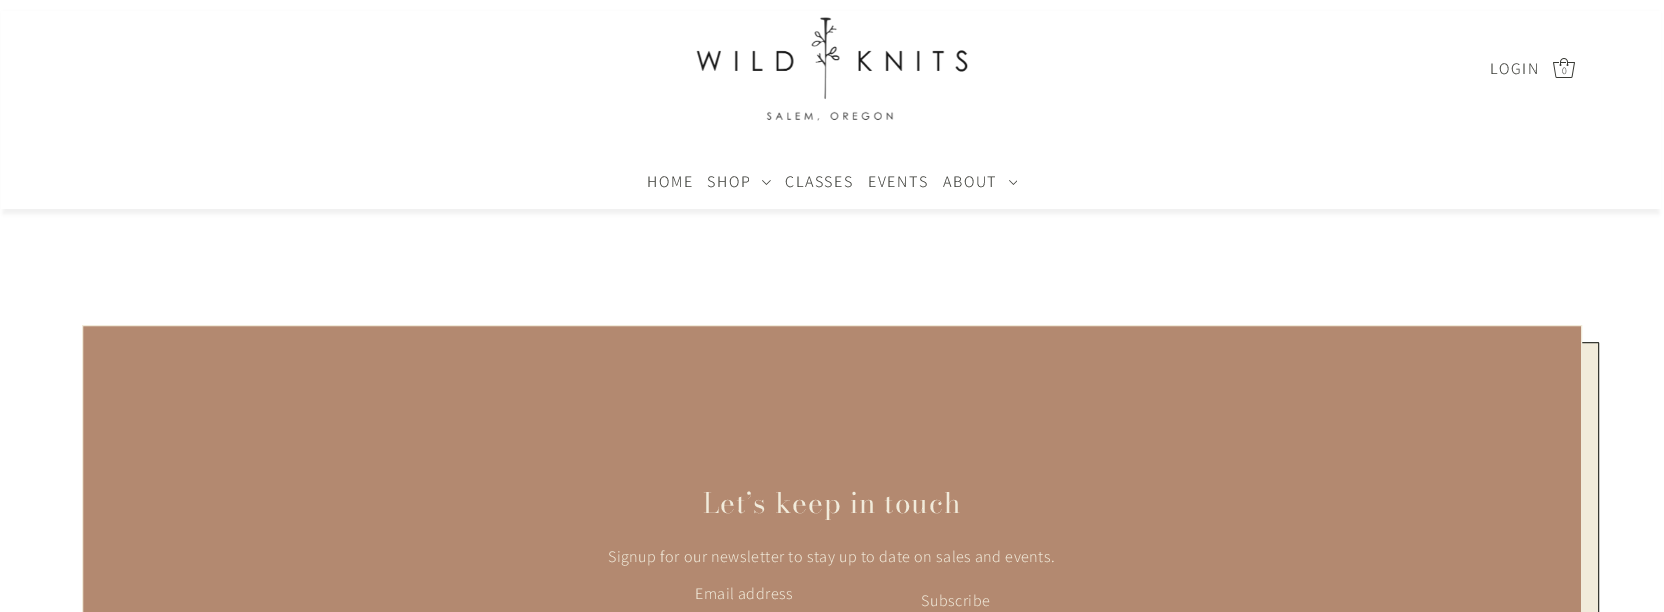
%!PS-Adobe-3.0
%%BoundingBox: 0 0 1664 612
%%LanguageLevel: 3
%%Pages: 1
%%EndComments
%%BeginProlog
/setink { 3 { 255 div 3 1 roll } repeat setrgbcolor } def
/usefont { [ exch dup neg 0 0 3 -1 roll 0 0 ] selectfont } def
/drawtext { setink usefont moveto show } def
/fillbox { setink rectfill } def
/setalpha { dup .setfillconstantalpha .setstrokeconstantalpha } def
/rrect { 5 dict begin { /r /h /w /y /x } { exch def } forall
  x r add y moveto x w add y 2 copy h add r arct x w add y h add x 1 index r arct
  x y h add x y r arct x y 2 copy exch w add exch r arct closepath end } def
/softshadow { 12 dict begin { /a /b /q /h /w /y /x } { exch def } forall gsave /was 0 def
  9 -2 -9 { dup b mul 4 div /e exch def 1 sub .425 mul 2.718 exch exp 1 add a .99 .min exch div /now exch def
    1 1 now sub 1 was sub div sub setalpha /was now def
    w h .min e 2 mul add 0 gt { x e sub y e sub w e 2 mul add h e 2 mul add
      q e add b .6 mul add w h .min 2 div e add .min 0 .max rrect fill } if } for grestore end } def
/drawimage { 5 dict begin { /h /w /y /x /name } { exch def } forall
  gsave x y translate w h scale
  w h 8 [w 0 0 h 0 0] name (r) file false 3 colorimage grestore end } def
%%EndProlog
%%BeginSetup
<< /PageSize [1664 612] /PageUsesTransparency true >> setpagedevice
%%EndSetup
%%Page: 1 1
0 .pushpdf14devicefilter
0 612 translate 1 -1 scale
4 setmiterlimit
0 0 1664 612 255 255 255 fillbox
0 0 0 setink
3 13 1656 201 0 2 0.05 softshadow
1 11 1660 198 255 255 255 fillbox
(assets/img1.rgb) 696 17 272 104 drawimage
/Assistant-Light 16 usefont
55 56 51 setink
1490 74 moveto 1.5 0 (LOGIN) ashow
(assets/img2.rgb) 1553 58 22 20 drawimage
(0) 1562 74 /Assistant-Light 10 55 56 51 drawtext
/Assistant-Light 16 usefont
647 187 moveto 1.5 0 (HOME) ashow
707 187 moveto 1.5 0 (SHOP) ashow
(assets/img3.rgb) 762 180 9 5 drawimage
785 187 moveto 1.5 0 (CLASSES) ashow
868 187 moveto 1.5 0 (EVENTS) ashow
943 187 moveto 1.5 0 (ABOUT) ashow
(assets/img4.rgb) 1009 180 8 5 drawimage
241 235 219 setink
99.5 342.5 1499 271 0.5 rrect gsave fill grestore
55 56 51 setink
stroke
179 137 112 setink
82.5 325.5 moveto 1581.5 325.5 lineto 1581.5 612.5 lineto 82.5 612.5 lineto closepath gsave fill grestore
241 235 219 setink
stroke
/BodoniModa-Regular 28 usefont
703 513 moveto 1 0 (Let’s keep in touch) ashow
/Assistant-Light 16 usefont
608 562 moveto 0.5 0 (Signup for our newsletter to stay up to date on sales and events.) ashow
695 599 moveto 0.5 0 (Email address) ashow
921 606 moveto 0.5 0 (Subscribe) ashow
.poppdf14devicefilter showpage
%%EOF
